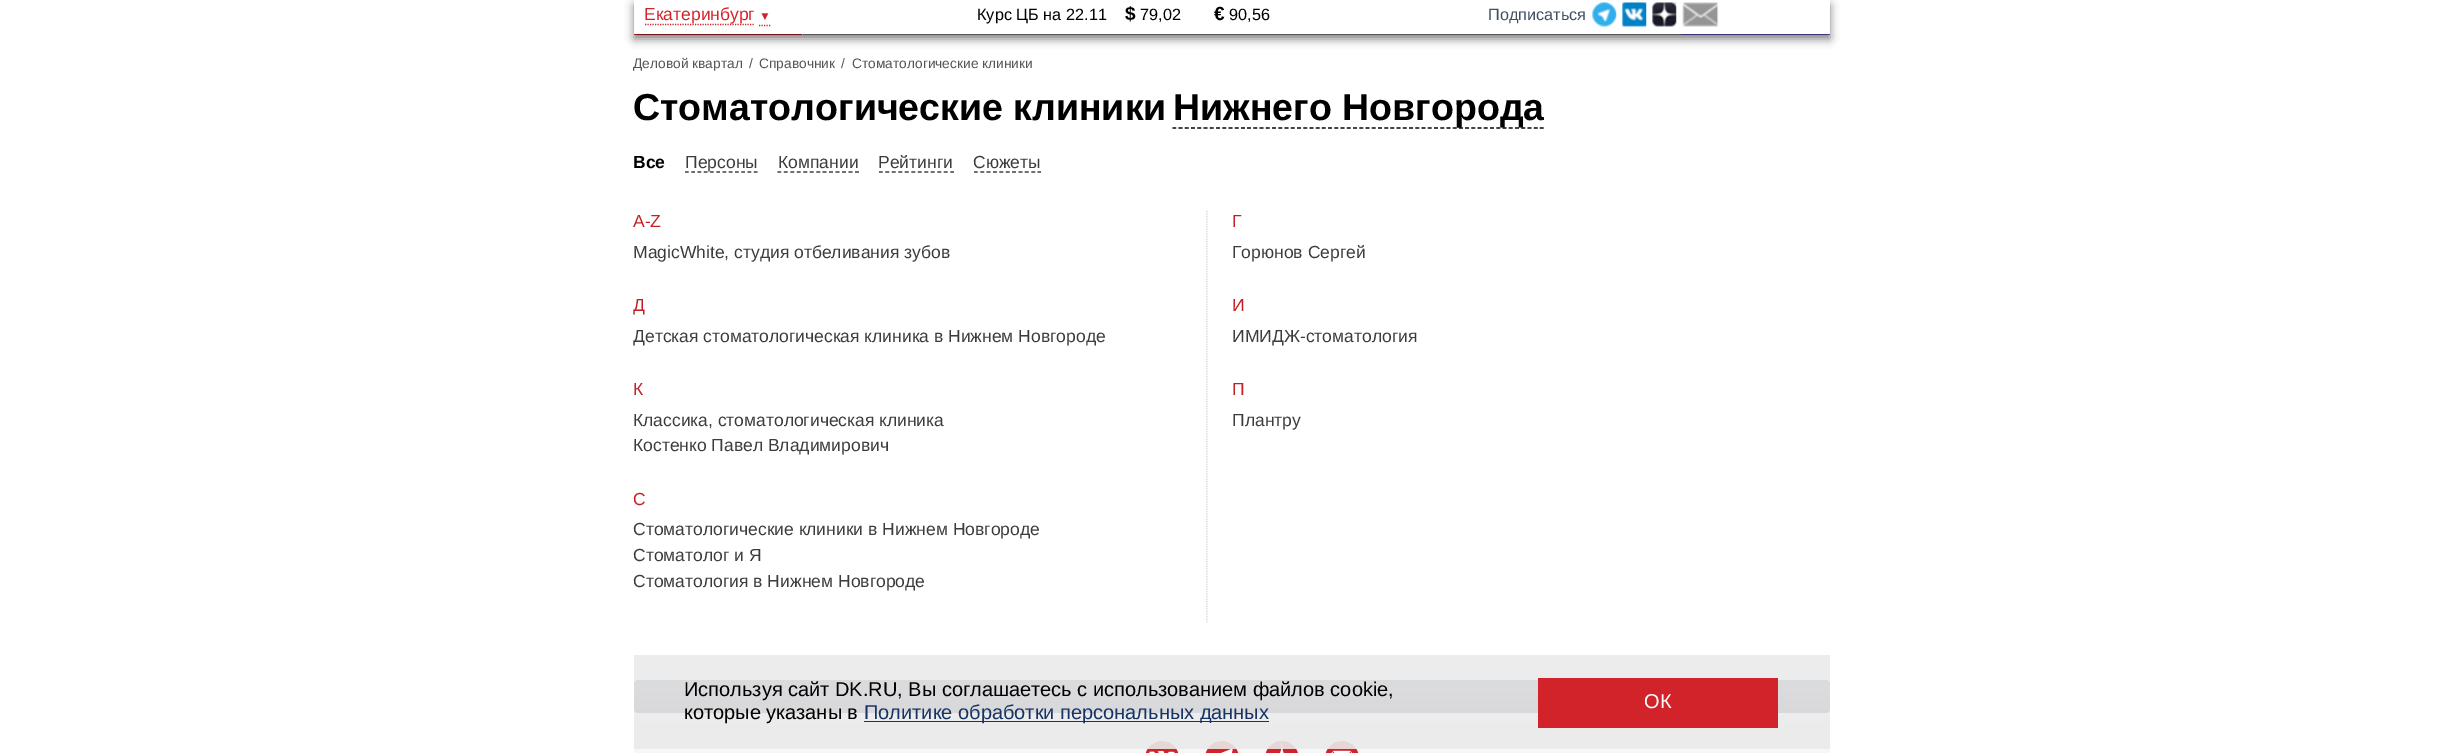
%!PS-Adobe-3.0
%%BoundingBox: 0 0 2462 753
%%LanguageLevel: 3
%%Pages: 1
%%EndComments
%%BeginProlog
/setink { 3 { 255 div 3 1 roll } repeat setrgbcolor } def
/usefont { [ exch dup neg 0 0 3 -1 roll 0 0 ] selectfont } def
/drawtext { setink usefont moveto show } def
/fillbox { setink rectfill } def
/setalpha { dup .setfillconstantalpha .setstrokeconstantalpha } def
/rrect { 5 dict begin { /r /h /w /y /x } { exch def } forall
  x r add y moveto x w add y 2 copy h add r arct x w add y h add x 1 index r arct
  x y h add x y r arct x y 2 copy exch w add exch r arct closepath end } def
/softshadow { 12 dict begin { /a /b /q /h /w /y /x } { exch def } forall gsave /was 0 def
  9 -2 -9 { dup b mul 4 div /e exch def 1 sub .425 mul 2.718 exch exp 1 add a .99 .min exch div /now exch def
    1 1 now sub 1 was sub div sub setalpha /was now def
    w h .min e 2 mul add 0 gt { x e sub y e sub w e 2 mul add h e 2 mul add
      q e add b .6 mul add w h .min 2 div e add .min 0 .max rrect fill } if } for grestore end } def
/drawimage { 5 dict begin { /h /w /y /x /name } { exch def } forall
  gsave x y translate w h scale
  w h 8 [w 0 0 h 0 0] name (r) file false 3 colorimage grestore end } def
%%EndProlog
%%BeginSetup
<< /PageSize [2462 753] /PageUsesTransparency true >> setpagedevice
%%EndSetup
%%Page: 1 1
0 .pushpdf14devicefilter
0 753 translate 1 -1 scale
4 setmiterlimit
0 0 2462 753 255 255 255 fillbox
(assets/img5.rgb) 634 34 168 1 drawimage
803 34 878 1 150 150 150 fillbox
1681 34 149 1 101 95 204 fillbox
0 0 0 setink
634 5 1196 34 0 4.5 0.5 softshadow
634 0 1196 34 255 255 255 fillbox
210 35 42 setink
1.2 setlinewidth
[1.25 1.25] 0 setdash
645 24.5 moveto 755 24.5 lineto stroke
759 25.5 moveto 771 25.5 lineto stroke
(Екатеринбург) 644 20 /LiberationSans-Regular 17.5 210 35 42 drawtext
(▼) 759 20 /LiberationSans-Regular 12 210 35 42 drawtext
(Курс ЦБ на 22.11) 977 20 /LiberationSans-Regular 16.25 0 0 0 drawtext
($) 1125 20 /LiberationSans-Bold 19 0 0 0 drawtext
(79,02) 1140 20 /LiberationSans-Regular 16.25 0 0 0 drawtext
(€) 1214 20 /LiberationSans-Bold 19 0 0 0 drawtext
(90,56) 1229 20 /LiberationSans-Regular 16.25 0 0 0 drawtext
(Подписаться) 1488 20 /LiberationSans-Regular 16.25 66 80 99 drawtext
(assets/img1.rgb) 1592 2 25 25 drawimage
(assets/img2.rgb) 1622 2 25 25 drawimage
(assets/img3.rgb) 1652 2 25 25 drawimage
(assets/img4.rgb) 1682 2 37 25 drawimage
(Деловой квартал) 633 68 /LiberationSans-Regular 13.75 85 85 85 drawtext
(/) 749 68 /LiberationSans-Regular 13.75 85 85 85 drawtext
(Справочник) 759 68 /LiberationSans-Regular 13.75 85 85 85 drawtext
(/) 841 68 /LiberationSans-Regular 13.75 85 85 85 drawtext
(Стоматологические клиники) 852 68 /LiberationSans-Regular 13.75 85 85 85 drawtext
(Стоматологические клиники) 633 120 /LiberationSans-Bold 37.5 0 0 0 drawtext
[3.75 2.48] 0 setdash
1172.5 128 moveto 1544 128 lineto stroke
(Нижнего Новгорода) 1173 120 /LiberationSans-Bold 37.5 0 0 0 drawtext
(Все) 633 168 /LiberationSans-Bold 17.5 0 0 0 drawtext
60 60 60 setink
[3.75 2.5] 0 setdash
685 172 moveto 757.5 172 lineto stroke
(Персоны) 685 168 /LiberationSans-Regular 17.5 60 60 60 drawtext
(Компании) 778 168 /LiberationSans-Regular 17.5 60 60 60 drawtext
[3.75 2.71] 0 setdash
777.5 172 moveto 859 172 lineto stroke
(Рейтинги) 878 168 /LiberationSans-Regular 17.5 60 60 60 drawtext
[3.75 2.73] 0 setdash
879 172 moveto 954 172 lineto stroke
(Сюжеты) 973 168 /LiberationSans-Regular 17.5 60 60 60 drawtext
[3.75 2.62] 0 setdash
974 172 moveto 1041 172 lineto stroke
(assets/img6.rgb) 1206 209 2 413 drawimage
(A-Z) 633 227 /LiberationSans-Regular 17.5 194 32 37 drawtext
(MagicWhite, студия отбеливания зубов) 633 258 /LiberationSans-Regular 17.5 60 60 60 drawtext
(Д) 633 311 /LiberationSans-Regular 17.5 194 32 37 drawtext
(Детская стоматологическая клиника в Нижнем Новгороде) 633 342 /LiberationSans-Regular 17.5 60 60 60 drawtext
(К) 633 395 /LiberationSans-Regular 17.5 194 32 37 drawtext
(Классика, стоматологическая клиника) 633 426 /LiberationSans-Regular 17.5 60 60 60 drawtext
(Костенко Павел Владимирович) 633 451 /LiberationSans-Regular 17.5 60 60 60 drawtext
(С) 633 505 /LiberationSans-Regular 17.5 194 32 37 drawtext
(Стоматологические клиники в Нижнем Новгороде) 633 535 /LiberationSans-Regular 17.5 60 60 60 drawtext
(Стоматолог и Я) 633 561 /LiberationSans-Regular 17.5 60 60 60 drawtext
(Стоматология в Нижнем Новгороде) 633 587 /LiberationSans-Regular 17.5 60 60 60 drawtext
(Г) 1232 227 /LiberationSans-Regular 17.5 194 32 37 drawtext
(Горюнов Сергей) 1232 258 /LiberationSans-Regular 17.5 60 60 60 drawtext
(И) 1232 311 /LiberationSans-Regular 17.5 194 32 37 drawtext
(ИМИДЖ-стоматология) 1232 342 /LiberationSans-Regular 17.5 60 60 60 drawtext
(П) 1232 395 /LiberationSans-Regular 17.5 194 32 37 drawtext
(Плантру) 1232 426 /LiberationSans-Regular 17.5 60 60 60 drawtext
gsave 634 680 1196 33 5 rrect clip newpath
<< /ShadingType 2 /ColorSpace /DeviceRGB /Coords [1232 680 1232 713] /Extend [true true] /Function << /FunctionType 3 /Domain [0 1] /Functions [<< /FunctionType 2 /Domain [0 1] /C0 [0.259 0.314 0.388] /C1 [0.259 0.314 0.388] /N 1 >> << /FunctionType 2 /Domain [0 1] /C0 [0.259 0.314 0.388] /C1 [0.157 0.204 0.263] /N 1 >>] /Bounds [0.24] /Encode [0 1 0 1] >> >> shfill grestore
634 723 1196 30 247 247 247 fillbox
(assets/img7.rgb) 1145 741 34 12 drawimage
(assets/img8.rgb) 1205 741 34 12 drawimage
(assets/img9.rgb) 1265 741 33 12 drawimage
(assets/img10.rgb) 1325 741 34 12 drawimage
0.9 setalpha
634 655 1196 94 235 234 234 fillbox
1 setalpha
(Используя сайт DK.RU, Вы соглашаетесь с использованием файлов cookie,) 684 696 /LiberationSans-Regular 20 0 0 0 drawtext
(которые указаны в) 684 719 /LiberationSans-Regular 20 0 0 0 drawtext
864 721 405 1 22 51 100 fillbox
(Политике обработки персональных данных) 864 719 /LiberationSans-Regular 20 22 51 100 drawtext
1538 678 240 50 210 35 42 fillbox
(ОК) 1644 708 /LiberationSans-Regular 20 255 255 255 drawtext
.poppdf14devicefilter showpage
%%EOF
